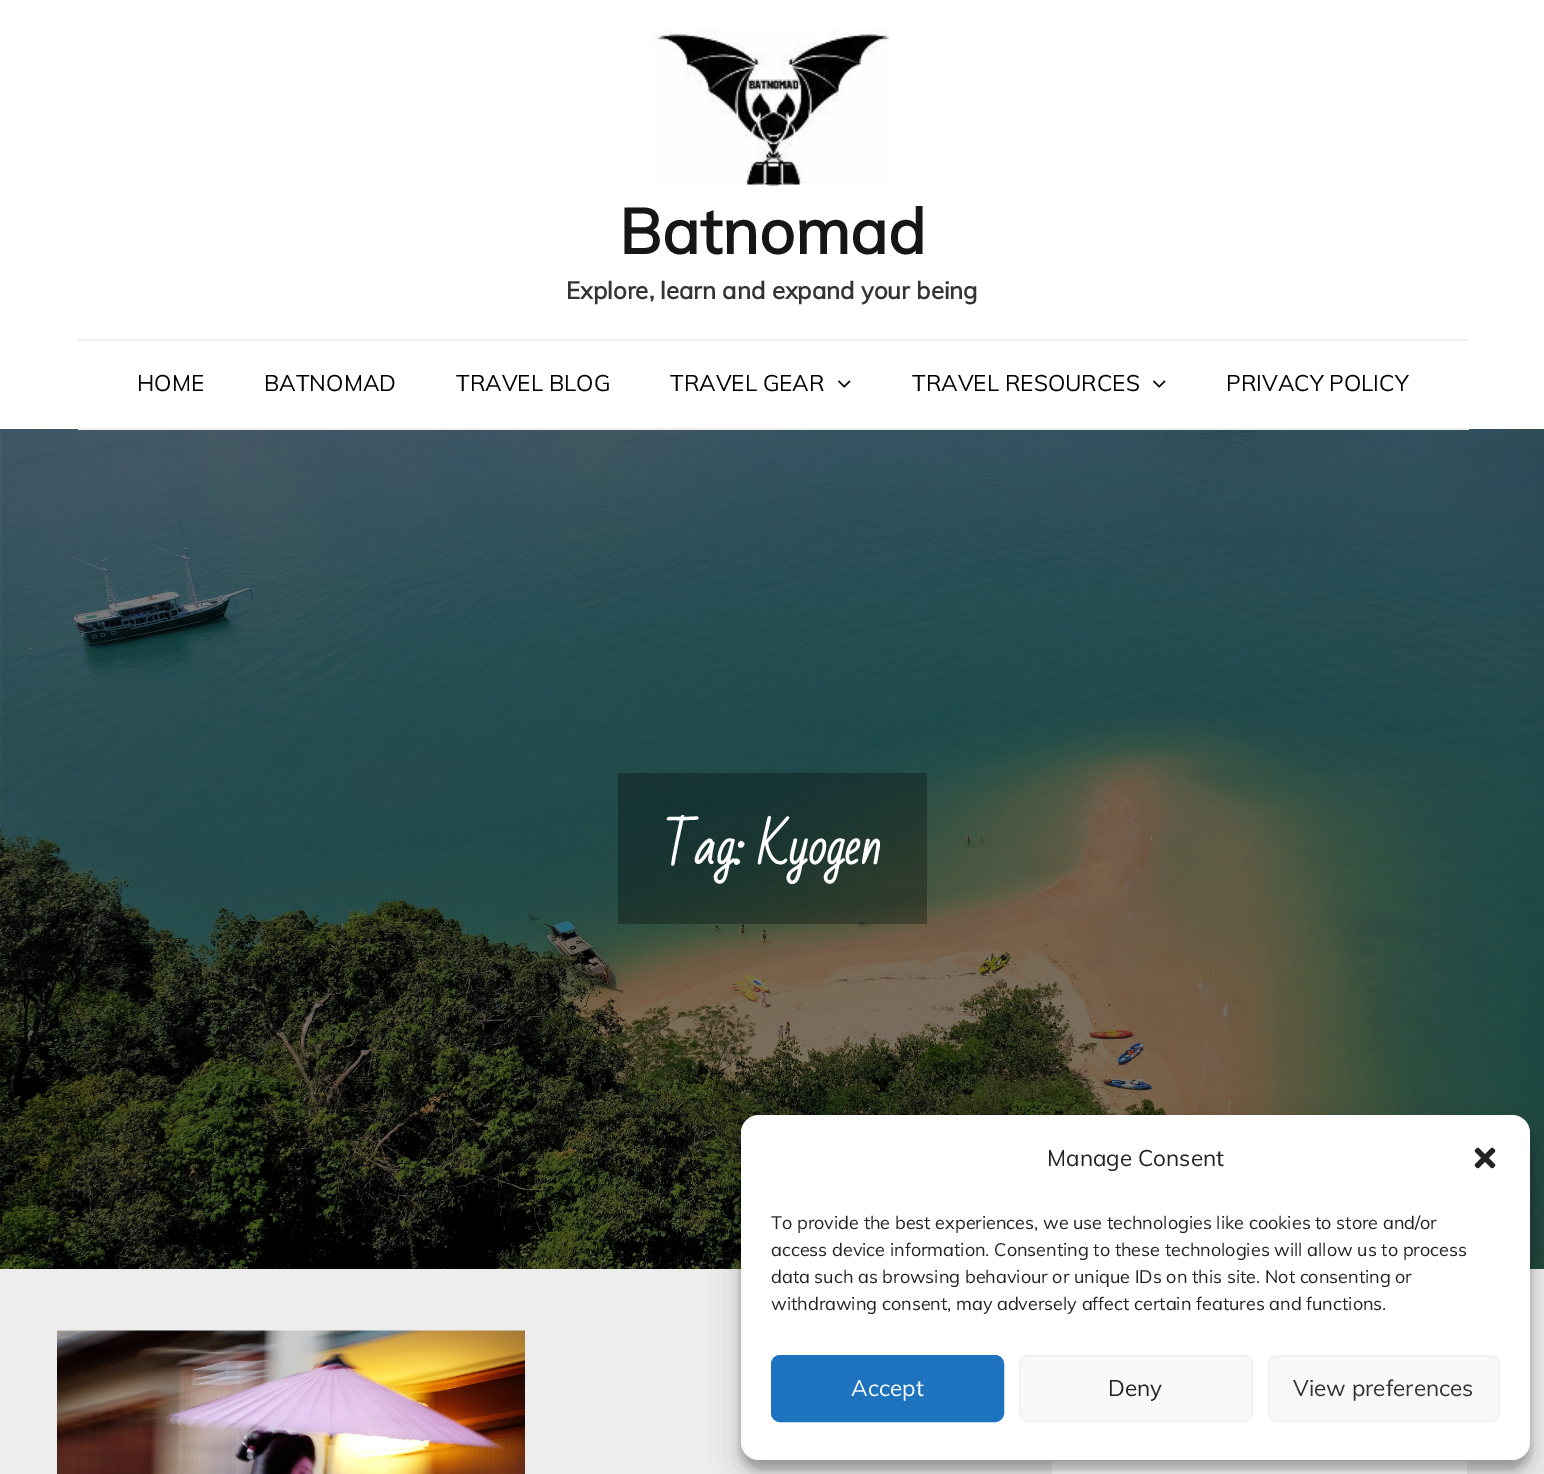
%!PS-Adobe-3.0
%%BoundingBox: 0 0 1544 1474
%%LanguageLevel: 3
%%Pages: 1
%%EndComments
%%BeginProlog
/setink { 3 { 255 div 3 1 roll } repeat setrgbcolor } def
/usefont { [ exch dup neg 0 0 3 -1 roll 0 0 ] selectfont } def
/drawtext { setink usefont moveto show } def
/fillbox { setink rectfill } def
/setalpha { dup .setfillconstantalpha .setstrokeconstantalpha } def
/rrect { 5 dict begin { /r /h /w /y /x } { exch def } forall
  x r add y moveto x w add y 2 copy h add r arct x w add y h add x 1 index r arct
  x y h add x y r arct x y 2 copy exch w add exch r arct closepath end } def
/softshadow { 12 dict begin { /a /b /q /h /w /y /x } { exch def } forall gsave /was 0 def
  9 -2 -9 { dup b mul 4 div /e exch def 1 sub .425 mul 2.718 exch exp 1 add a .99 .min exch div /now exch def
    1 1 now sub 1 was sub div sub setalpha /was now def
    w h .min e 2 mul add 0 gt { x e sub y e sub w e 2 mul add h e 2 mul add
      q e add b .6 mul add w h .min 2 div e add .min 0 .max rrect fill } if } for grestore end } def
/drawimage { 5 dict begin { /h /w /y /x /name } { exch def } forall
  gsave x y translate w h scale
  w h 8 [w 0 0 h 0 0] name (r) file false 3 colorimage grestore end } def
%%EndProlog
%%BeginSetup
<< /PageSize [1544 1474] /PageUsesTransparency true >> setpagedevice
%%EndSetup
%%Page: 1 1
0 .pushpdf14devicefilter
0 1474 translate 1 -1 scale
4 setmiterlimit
0 0 1544 1474 237 237 237 fillbox
0 0 1544 429 255 255 255 fillbox
(assets/img1.rgb) 650 30 240 157 drawimage
(Batnomad) 619 254 /Muli-Bold 63 22 22 22 drawtext
(Explore, learn and expand your being) 566 299 /Muli-Bold 24 51 51 51 drawtext
78 339 1391 2 239 239 239 fillbox
(assets/img3.rgb) 0 429 1544 840 drawimage
78 428 1391 2 239 239 239 fillbox
(HOME) 137 391 /Muli-Regular 22.5 0 0 0 drawtext
(BATNOMAD) 264 391 /Muli-Regular 22.5 0 0 0 drawtext
(TRAVEL BLOG) 456 391 /Muli-Regular 22.5 0 0 0 drawtext
(TRAVEL GEAR) 670 391 /Muli-Regular 22.5 0 0 0 drawtext
(assets/img2.rgb) 838 380 13 8 drawimage
(TRAVEL RESOURCES) 912 391 /Muli-Regular 22.5 0 0 0 drawtext
(assets/img2.rgb) 1153 380 13 8 drawimage
(PRIVACY POLICY) 1226 391 /Muli-Regular 22.5 0 0 0 drawtext
0.3 setalpha
618 773 309 151 0 0 0 fillbox
1 setalpha
(Tag: Kyogen) 663 864 /BadScript-Bold 48 255 255 255 drawtext
(assets/img4.rgb) 57 1330 468 144 drawimage
1052 1461 415 13 255 255 255 fillbox
0 0 0 setink
741 1124 789 345 18 4.5 0.23 softshadow
741 1130 789 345 18 15 0.19 softshadow
255 255 255 setink
741 1115 789 345 18 rrect fill
(Manage Consent) 1047 1166 /Muli-Regular 22.5 34 34 34 drawtext
(assets/img5.rgb) 1474 1147 22 22 drawimage
(To provide the best experiences, we use technologies like cookies to store and/or) 771 1229 /Muli-Regular 18 34 34 34 drawtext
(access device information. Consenting to these technologies will allow us to process) 771 1256 /Muli-Regular 18 34 34 34 drawtext
(data such as browsing behaviour or unique IDs on this site. Not consenting or) 771 1283 /Muli-Regular 18 34 34 34 drawtext
(withdrawing consent, may adversely affect certain features and functions.) 771 1310 /Muli-Regular 18 34 34 34 drawtext
30 115 190 setink
772 1356 231 65 8 rrect gsave fill grestore
2 setlinewidth
stroke
(Accept) 851 1396 /Muli-Regular 22.5 255 255 255 drawtext
249 249 249 setink
1020 1356 232 65 8 rrect gsave fill grestore
242 242 242 setink
stroke
(Deny) 1108 1396 /Muli-Regular 22.5 34 34 34 drawtext
249 249 249 setink
1269 1356 230 65 8 rrect gsave fill grestore
242 242 242 setink
stroke
(View preferences) 1293 1396 /Muli-Regular 22.5 51 51 51 drawtext
.poppdf14devicefilter showpage
%%EOF
